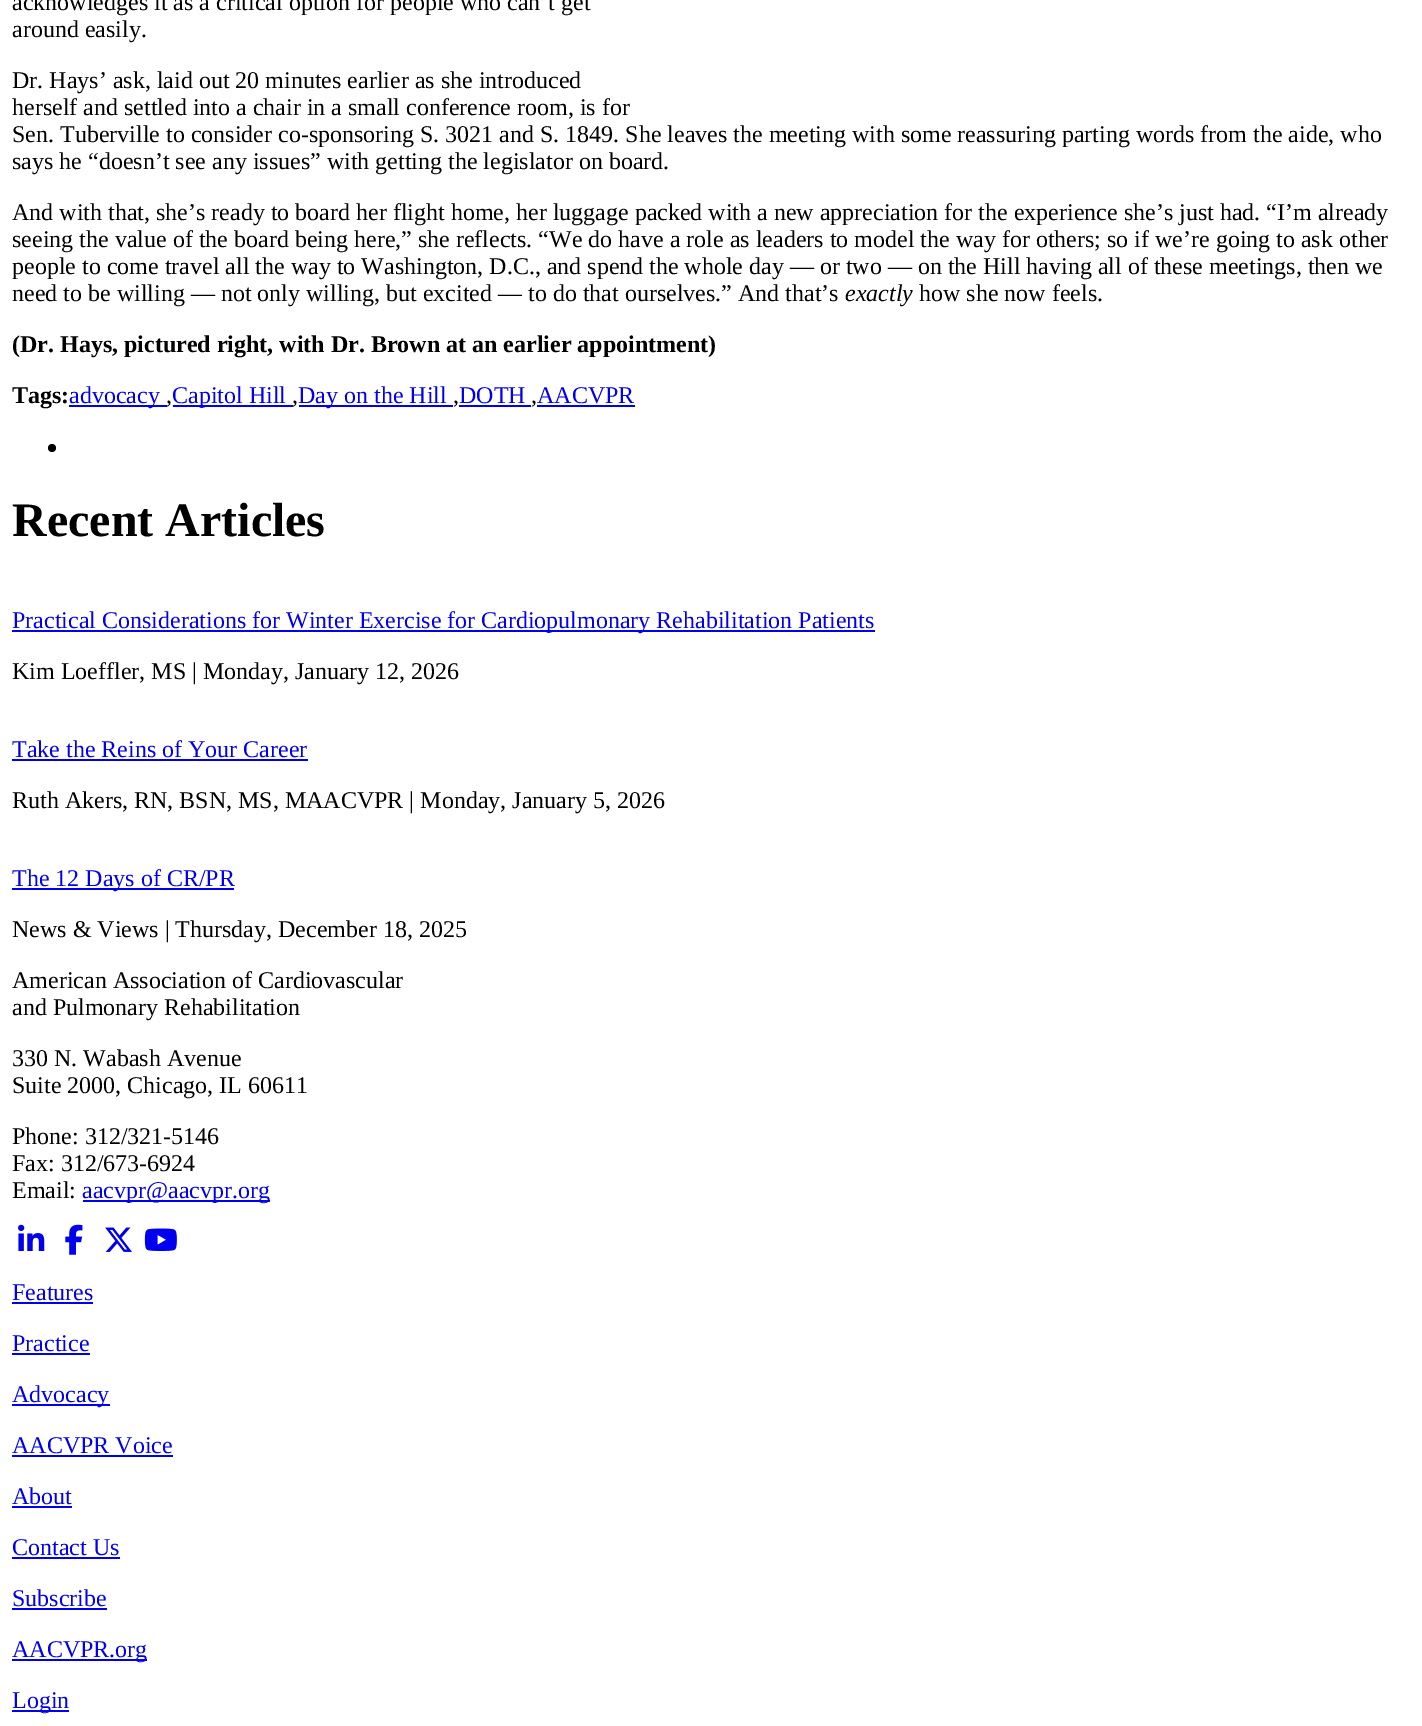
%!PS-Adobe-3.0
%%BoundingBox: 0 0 1422 1726
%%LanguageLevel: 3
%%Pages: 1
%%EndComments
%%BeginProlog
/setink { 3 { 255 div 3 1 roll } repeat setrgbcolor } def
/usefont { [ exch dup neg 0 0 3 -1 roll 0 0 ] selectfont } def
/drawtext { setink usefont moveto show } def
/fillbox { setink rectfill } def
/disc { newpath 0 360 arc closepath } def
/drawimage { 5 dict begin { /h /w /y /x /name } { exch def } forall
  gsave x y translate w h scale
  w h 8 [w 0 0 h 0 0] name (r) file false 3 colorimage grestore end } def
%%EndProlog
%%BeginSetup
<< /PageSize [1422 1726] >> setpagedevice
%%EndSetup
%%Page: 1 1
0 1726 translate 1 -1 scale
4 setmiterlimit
0 0 1422 1726 255 255 255 fillbox
(acknowledges it as a critical option for people who can’t get) 12 10 /LiberationSerif-Regular 24 0 0 0 drawtext
(around easily.) 12 37 /LiberationSerif-Regular 24 0 0 0 drawtext
(Dr. Hays’ ask, laid out 20 minutes earlier as she introduced) 12 88 /LiberationSerif-Regular 24 0 0 0 drawtext
(herself and settled into a chair in a small conference room, is for) 12 115 /LiberationSerif-Regular 24 0 0 0 drawtext
(Sen. Tuberville to consider co-sponsoring S. 3021 and S. 1849. She leaves the meeting with some reassuring parting words from the aide, who) 12 142 /LiberationSerif-Regular 24 0 0 0 drawtext
(says he “doesn’t see any issues” with getting the legislator on board.) 12 169 /LiberationSerif-Regular 24 0 0 0 drawtext
(And with that, she’s ready to board her flight home, her luggage packed with a new appreciation for the experience she’s just had. “I’m already) 12 220 /LiberationSerif-Regular 24 0 0 0 drawtext
(seeing the value of the board being here,” she reflects. “We do have a role as leaders to model the way for others; so if we’re going to ask other) 12 247 /LiberationSerif-Regular 24 0 0 0 drawtext
(people to come travel all the way to Washington, D.C., and spend the whole day — or two — on the Hill having all of these meetings, then we) 12 274 /LiberationSerif-Regular 24 0 0 0 drawtext
(need to be willing — not only willing, but excited — to do that ourselves.” And that’s) 12 301 /LiberationSerif-Regular 24 0 0 0 drawtext
(exactly) 845 301 /LiberationSerif-Italic 24 0 0 0 drawtext
522 294 1 2 253 253 253 fillbox
(how she now feels.) 919 301 /LiberationSerif-Regular 24 0 0 0 drawtext
(\(Dr. Hays, pictured right, with Dr. Brown at an earlier appointment\)) 12 352 /LiberationSerif-Bold 24 0 0 0 drawtext
(Tags:) 12 403 /LiberationSerif-Bold 24 0 0 0 drawtext
69 405 98 2 0 0 238 fillbox
(advocacy) 69 403 /LiberationSerif-Regular 24 0 0 238 drawtext
(,) 166 403 /LiberationSerif-Regular 24 0 0 0 drawtext
173 405 120 2 0 0 238 fillbox
(Capitol Hill) 172 403 /LiberationSerif-Regular 24 0 0 238 drawtext
(,) 292 403 /LiberationSerif-Regular 24 0 0 0 drawtext
299 405 154 2 0 0 238 fillbox
(Day on the Hill) 298 403 /LiberationSerif-Regular 24 0 0 238 drawtext
(,) 453 403 /LiberationSerif-Regular 24 0 0 0 drawtext
(DOTH) 459 403 /LiberationSerif-Regular 24 0 0 238 drawtext
459 405 72 2 0 0 238 fillbox
(,) 531 403 /LiberationSerif-Regular 24 0 0 0 drawtext
(AACVPR) 537 403 /LiberationSerif-Regular 24 0 0 238 drawtext
537 405 98 2 0 0 238 fillbox
0 0 0 setink
52 448 4 disc fill
(Recent Articles) 12 536 /LiberationSerif-Bold 48 0 0 0 drawtext
12 630 863 2 0 0 238 fillbox
(Practical Considerations for Winter Exercise for Cardiopulmonary Rehabilitation Patients) 12 628 /LiberationSerif-Regular 24 0 0 238 drawtext
(Kim Loeffler, MS | Monday, January 12, 2026) 12 679 /LiberationSerif-Regular 24 0 0 0 drawtext
(Take the Reins of Your Career) 12 757 /LiberationSerif-Regular 24 0 0 238 drawtext
12 759 296 2 0 0 238 fillbox
(Ruth Akers, RN, BSN, MS, MAACVPR | Monday, January 5, 2026) 12 808 /LiberationSerif-Regular 24 0 0 0 drawtext
12 888 222 2 0 0 238 fillbox
(The 12 Days of CR/PR) 12 886 /LiberationSerif-Regular 24 0 0 238 drawtext
(News & Views | Thursday, December 18, 2025) 12 937 /LiberationSerif-Regular 24 0 0 0 drawtext
(American Association of Cardiovascular) 12 988 /LiberationSerif-Regular 24 0 0 0 drawtext
(and Pulmonary Rehabilitation) 12 1015 /LiberationSerif-Regular 24 0 0 0 drawtext
(330 N. Wabash Avenue) 12 1066 /LiberationSerif-Regular 24 0 0 0 drawtext
(Suite 2000, Chicago, IL 60611) 12 1093 /LiberationSerif-Regular 24 0 0 0 drawtext
(Phone: 312/321-5146) 12 1144 /LiberationSerif-Regular 24 0 0 0 drawtext
(Fax: 312/673-6924) 12 1171 /LiberationSerif-Regular 24 0 0 0 drawtext
(Email:) 12 1198 /LiberationSerif-Regular 24 0 0 0 drawtext
83 1200 187 2 0 0 238 fillbox
(aacvpr@aacvpr.org) 82 1198 /LiberationSerif-Regular 24 0 0 238 drawtext
(assets/img1.rgb) 18 1224 27 27 drawimage
(assets/img2.rgb) 65 1224 18 31 drawimage
(assets/img3.rgb) 105 1227 27 25 drawimage
(assets/img4.rgb) 144 1228 33 23 drawimage
(Features) 12 1300 /LiberationSerif-Regular 24 0 0 238 drawtext
12 1302 81 2 0 0 238 fillbox
(Practice) 12 1351 /LiberationSerif-Regular 24 0 0 238 drawtext
12 1353 78 2 0 0 238 fillbox
12 1404 98 2 0 0 238 fillbox
(Advocacy) 12 1402 /LiberationSerif-Regular 24 0 0 238 drawtext
(AACVPR Voice) 12 1453 /LiberationSerif-Regular 24 0 0 238 drawtext
12 1455 161 2 0 0 238 fillbox
(About) 12 1504 /LiberationSerif-Regular 24 0 0 238 drawtext
12 1506 60 2 0 0 238 fillbox
(Contact Us) 12 1555 /LiberationSerif-Regular 24 0 0 238 drawtext
12 1557 108 2 0 0 238 fillbox
(Subscribe) 12 1606 /LiberationSerif-Regular 24 0 0 238 drawtext
12 1608 95 2 0 0 238 fillbox
12 1659 135 2 0 0 238 fillbox
(AACVPR.org) 12 1657 /LiberationSerif-Regular 24 0 0 238 drawtext
12 1710 57 2 0 0 238 fillbox
(Login) 12 1708 /LiberationSerif-Regular 24 0 0 238 drawtext
showpage
%%EOF
